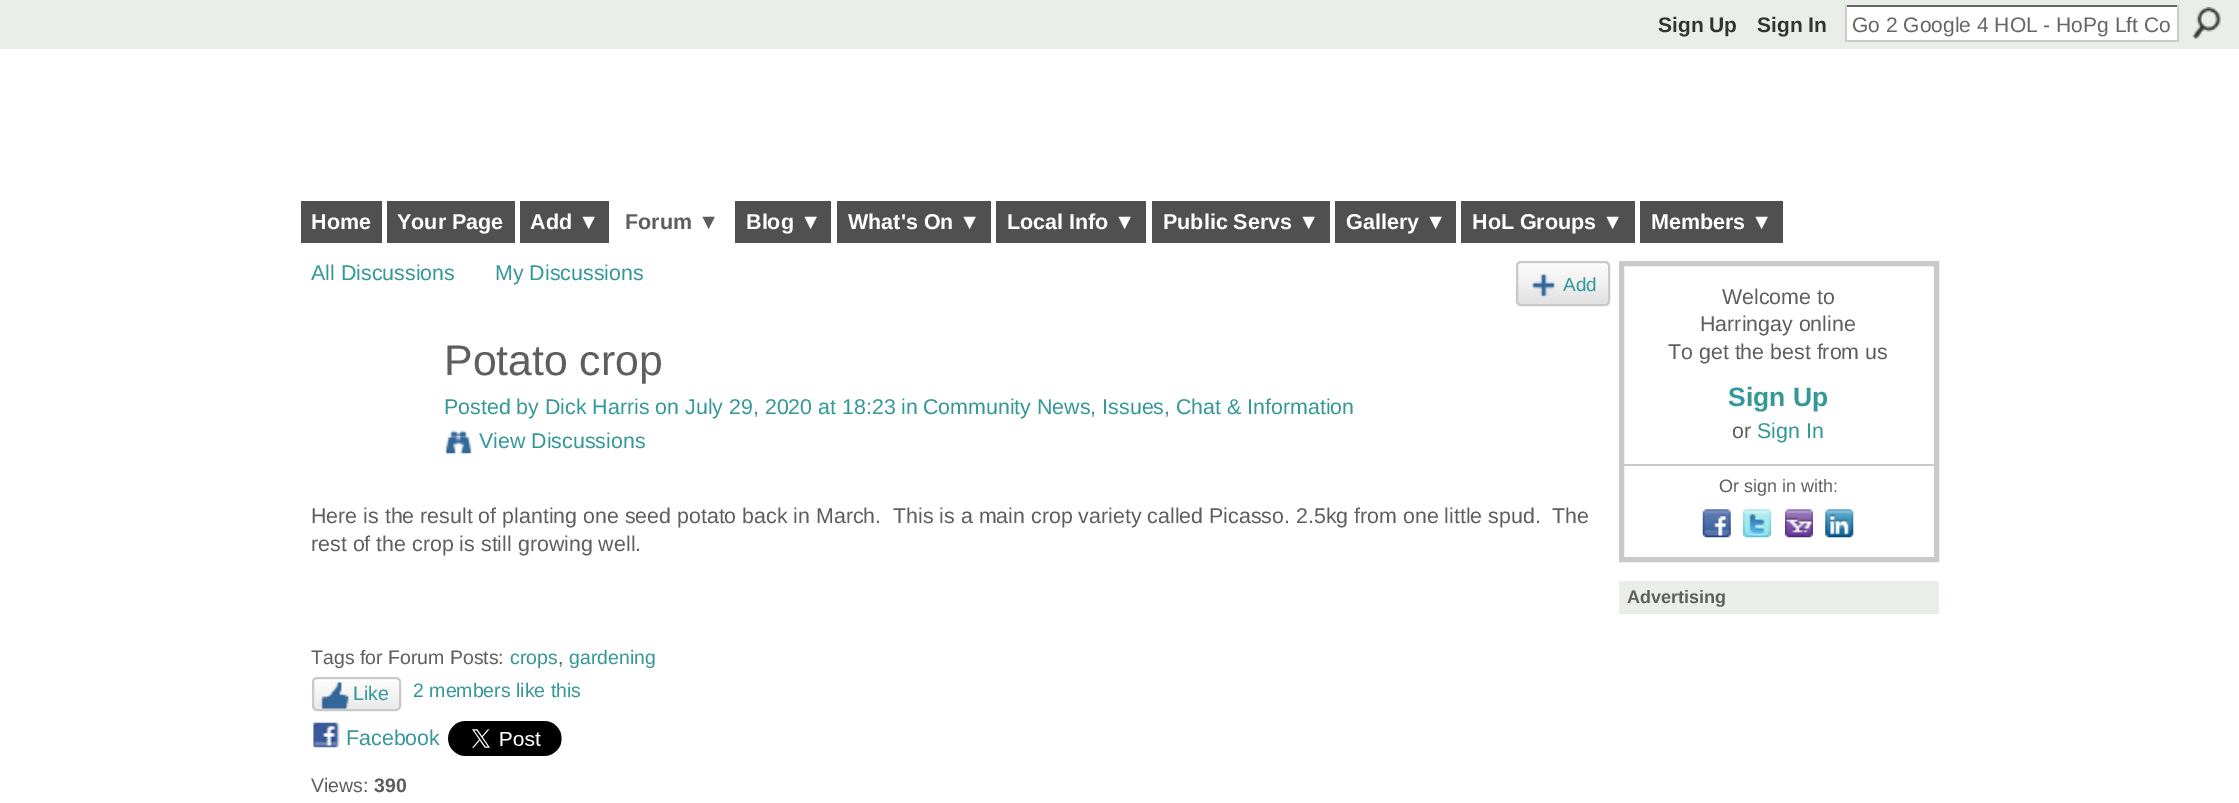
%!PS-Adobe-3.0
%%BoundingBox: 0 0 2239 803
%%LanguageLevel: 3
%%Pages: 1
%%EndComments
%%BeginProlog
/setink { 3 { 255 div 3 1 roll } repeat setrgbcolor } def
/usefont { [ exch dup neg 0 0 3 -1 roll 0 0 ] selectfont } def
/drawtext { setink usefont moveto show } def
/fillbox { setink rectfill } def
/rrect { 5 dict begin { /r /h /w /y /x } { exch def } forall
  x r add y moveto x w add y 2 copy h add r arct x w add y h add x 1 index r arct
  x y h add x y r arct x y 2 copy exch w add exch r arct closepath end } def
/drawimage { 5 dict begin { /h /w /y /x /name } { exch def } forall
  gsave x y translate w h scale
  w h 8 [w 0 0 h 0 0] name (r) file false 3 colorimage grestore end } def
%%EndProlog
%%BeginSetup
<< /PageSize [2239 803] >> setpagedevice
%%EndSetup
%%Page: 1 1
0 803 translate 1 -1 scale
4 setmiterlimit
0 0 2239 803 255 255 255 fillbox
0 0 2239 49 233 238 232 fillbox
(Sign Up) 1658 32 /LiberationSans-Bold 21 51 51 51 drawtext
(Sign In) 1757 32 /LiberationSans-Bold 21 51 51 51 drawtext
1847 7 330 33 255 255 255 fillbox
1845 5 334 2 102 102 102 fillbox
2177 5 2 37 204 204 204 fillbox
1845 40 334 2 204 204 204 fillbox
1845 5 2 37 204 204 204 fillbox
(Go 2 Google 4 HOL - HoPg Lft Co) 1852 32 /LiberationSans-Regular 21 102 102 102 drawtext
(assets/img1.rgb) 2192 7 29 32 drawimage
301 201 81 42 80 80 80 fillbox
(Home) 311 229 /LiberationSans-Bold 21.5 255 255 255 drawtext
387 201 128 42 80 80 80 fillbox
(Your Page) 397 229 /LiberationSans-Bold 21.5 255 255 255 drawtext
520 201 89 42 80 80 80 fillbox
(Add ▼) 530 229 /LiberationSans-Bold 21.5 255 255 255 drawtext
(Forum ▼) 625 229 /LiberationSans-Bold 21.5 94 94 94 drawtext
735 201 96 42 80 80 80 fillbox
(Blog ▼) 746 229 /LiberationSans-Bold 21.5 255 255 255 drawtext
837 201 154 42 80 80 80 fillbox
(What's On ▼) 848 229 /LiberationSans-Bold 21.5 255 255 255 drawtext
996 201 150 42 80 80 80 fillbox
(Local Info ▼) 1007 229 /LiberationSans-Bold 21.5 255 255 255 drawtext
1152 201 178 42 80 80 80 fillbox
(Public Servs ▼) 1163 229 /LiberationSans-Bold 21.5 255 255 255 drawtext
1335 201 121 42 80 80 80 fillbox
(Gallery ▼) 1346 229 /LiberationSans-Bold 21.5 255 255 255 drawtext
1461 201 174 42 80 80 80 fillbox
(HoL Groups ▼) 1472 229 /LiberationSans-Bold 21.5 255 255 255 drawtext
1640 201 143 42 80 80 80 fillbox
(Members ▼) 1651 229 /LiberationSans-Bold 21.5 255 255 255 drawtext
(All Discussions) 311 280 /LiberationSans-Regular 21.38 52 152 153 drawtext
(My Discussions) 495 280 /LiberationSans-Regular 21.38 52 152 153 drawtext
(assets/img2.rgb) 1515 264 95 42 drawimage
201 201 201 setink
2 setlinewidth
1517 262 92 43 4 rrect stroke
(assets/img3.rgb) 1532 274 23 23 drawimage
(Add) 1563 291 /LiberationSans-Regular 19 52 152 153 drawtext
(Potato crop) 444 375 /LiberationSans-Regular 42.75 94 94 94 drawtext
(Posted by Dick Harris on July 29, 2020 at 18:23 in) 444 414 /LiberationSans-Regular 21.38 52 152 153 drawtext
(Community News, Issues, Chat & Information) 923 414 /LiberationSans-Regular 21.38 52 152 153 drawtext
(assets/img4.rgb) 445 430 27 24 drawimage
(View Discussions) 479 448 /LiberationSans-Regular 21.38 52 152 153 drawtext
(Here is the result of planting one seed potato back in March.  This is a main crop variety called Picasso. 2.5kg from one little spud.  The) 311 523 /LiberationSans-Regular 21.38 94 94 94 drawtext
(rest of the crop is still growing well.) 311 551 /LiberationSans-Regular 21.38 94 94 94 drawtext
(Tags for Forum Posts:) 311 664 /LiberationSans-Regular 19.5 94 94 94 drawtext
(crops) 510 664 /LiberationSans-Regular 19.5 52 152 153 drawtext
(,) 558 664 /LiberationSans-Regular 19.5 94 94 94 drawtext
(gardening) 569 664 /LiberationSans-Regular 19.5 52 152 153 drawtext
(assets/img5.rgb) 311 681 90 30 drawimage
201 201 201 setink
313 678 87 32 4 rrect stroke
(assets/img6.rgb) 321 682 28 27 drawimage
(Like) 353 700 /LiberationSans-Regular 19.5 52 152 153 drawtext
(2 members like this) 413 697 /LiberationSans-Regular 19.5 52 152 153 drawtext
(assets/img7.rgb) 313 722 27 26 drawimage
(Facebook) 346 745 /LiberationSans-Regular 21.38 52 152 153 drawtext
(assets/img8.rgb) 448 721 114 35 drawimage
(Views:) 311 792 /LiberationSans-Regular 19.5 94 94 94 drawtext
(390) 374 792 /LiberationSans-Bold 19.5 94 94 94 drawtext
201 201 201 setink
5 setlinewidth
1621.5 263.5 315 296 rectstroke
(Welcome to) 1722 304 /LiberationSans-Regular 21.38 94 94 94 drawtext
(Harringay online) 1700 331 /LiberationSans-Regular 21.38 94 94 94 drawtext
(To get the best from us) 1668 359 /LiberationSans-Regular 21.38 94 94 94 drawtext
(Sign Up) 1728 406 /LiberationSans-Bold 26.5 52 152 153 drawtext
(or) 1732 438 /LiberationSans-Regular 21.38 94 94 94 drawtext
(Sign In) 1757 438 /LiberationSans-Regular 21.38 52 152 153 drawtext
1624 464 310 2 201 201 201 fillbox
(Or sign in with:) 1719 492 /LiberationSans-Regular 18 94 94 94 drawtext
(assets/img9.rgb) 1702 509 29 29 drawimage
(assets/img10.rgb) 1743 509 28 29 drawimage
(assets/img11.rgb) 1785 509 28 29 drawimage
(assets/img12.rgb) 1825 509 29 29 drawimage
1619 581 320 33 233 238 232 fillbox
(Advertising) 1627 603 /LiberationSans-Bold 18 94 94 94 drawtext
showpage
%%EOF
